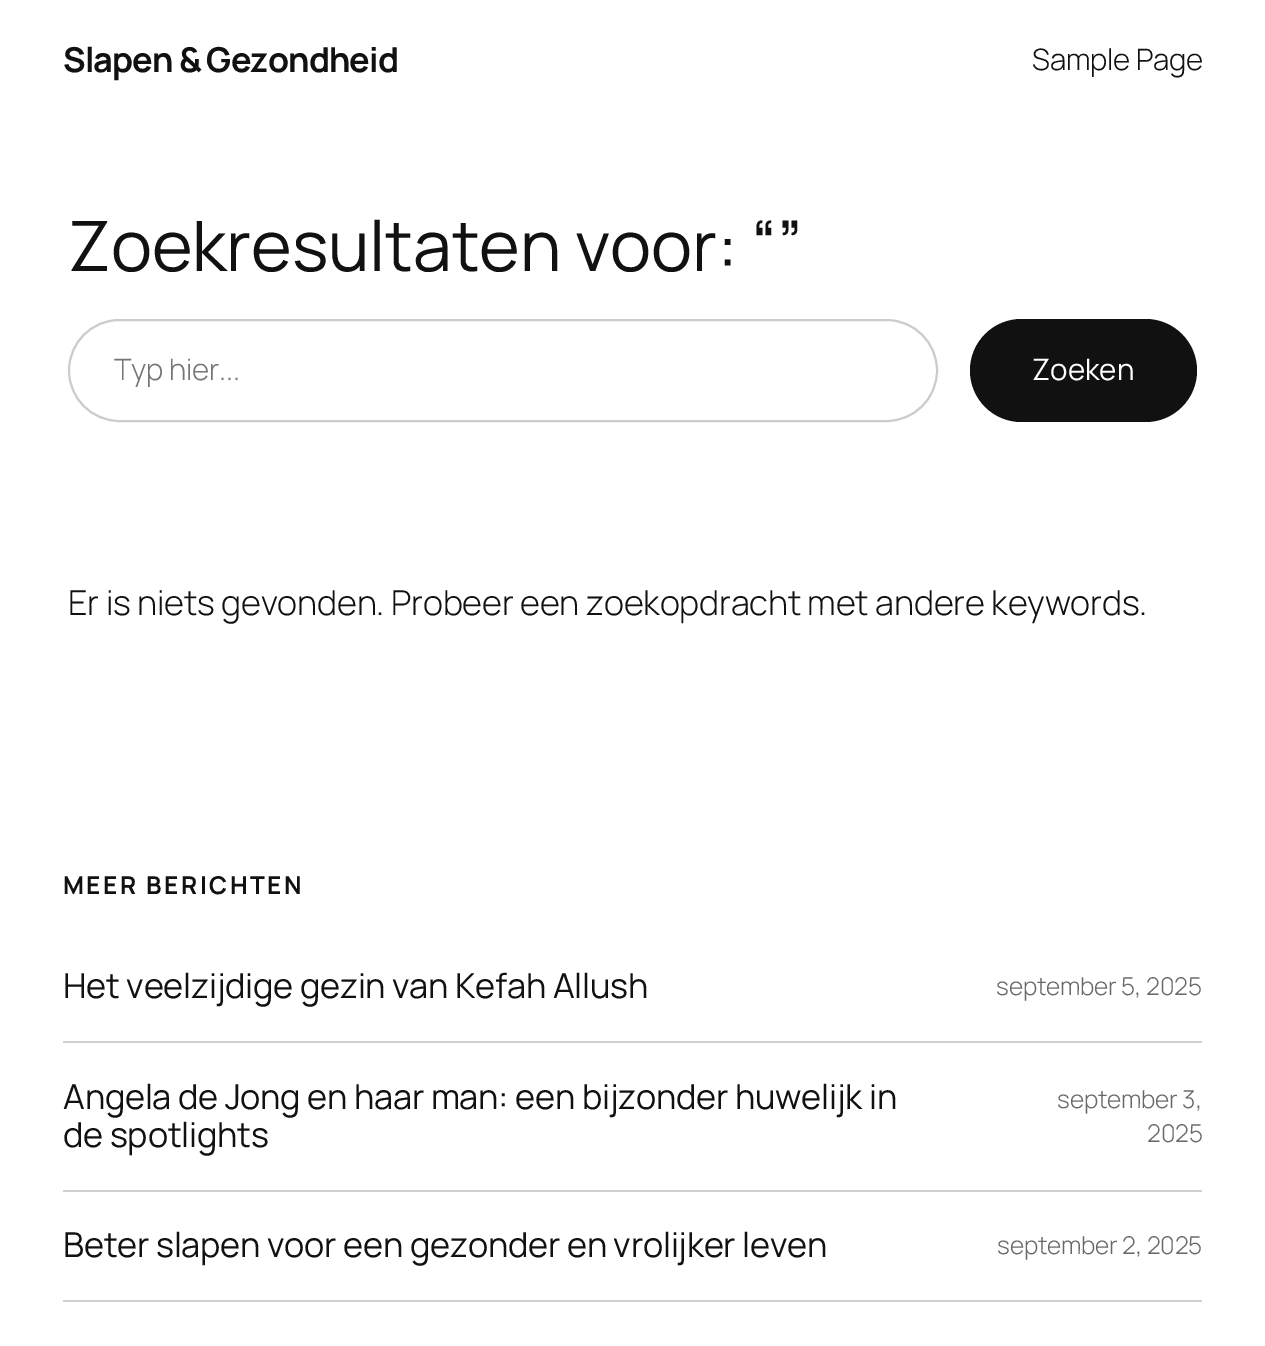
%!PS-Adobe-3.0
%%BoundingBox: 0 0 1265 1346
%%LanguageLevel: 3
%%Pages: 1
%%EndComments
%%BeginProlog
/setink { 3 { 255 div 3 1 roll } repeat setrgbcolor } def
/usefont { [ exch dup neg 0 0 3 -1 roll 0 0 ] selectfont } def
/drawtext { setink usefont moveto show } def
/fillbox { setink rectfill } def
/rrect { 5 dict begin { /r /h /w /y /x } { exch def } forall
  x r add y moveto x w add y 2 copy h add r arct x w add y h add x 1 index r arct
  x y h add x y r arct x y 2 copy exch w add exch r arct closepath end } def
%%EndProlog
%%BeginSetup
<< /PageSize [1265 1346] >> setpagedevice
%%EndSetup
%%Page: 1 1
0 1346 translate 1 -1 scale
4 setmiterlimit
0 0 1265 1346 255 255 255 fillbox
/Manrope-Bold 34.25 usefont
17 17 17 setink
63 72 moveto -0.9 0 (Slapen & Gezondheid) ashow
/Manrope-Light 29.5 usefont
1032 70 moveto -0.18 0 (Sample Page) ashow
/Manrope-Regular 69.6 usefont
68 271 moveto -0.18 0 (Zoekresultaten voor: “”) ashow
204 204 204 setink
2 setlinewidth
69 320 868 101 50.5 rrect stroke
/Manrope-Light 29.5 usefont
117 117 117 setink
114 380 moveto -0.18 0 (Typ hier...) ashow
17 17 17 setink
970 319 227 103 51.5 rrect fill
(Zoeken) 1032 380 /Manrope-Regular 29.5 255 255 255 drawtext
/Manrope-Light 34.25 usefont
17 17 17 setink
68 615 moveto -0.18 0 (Er is niets gevonden. Probeer een zoekopdracht met andere keywords.) ashow
/Manrope-Bold 24.5 usefont
63 894 moveto 2.5 0 (MEER BERICHTEN) ashow
63 1041 1139 2 207 207 207 fillbox
/Manrope-Regular 34.25 usefont
17 17 17 setink
63 998 moveto -0.18 0 (Het veelzijdige gezin van Kefah Allush) ashow
/Manrope-Light 24.5 usefont
104 104 104 setink
996 995 moveto -0.18 0 (september 5, 2025) ashow
63 1190 1139 2 207 207 207 fillbox
/Manrope-Regular 34.25 usefont
17 17 17 setink
63 1109 moveto -0.18 0 (Angela de Jong en haar man: een bijzonder huwelijk in) ashow
63 1147 moveto -0.18 0 (de spotlights) ashow
/Manrope-Light 24.5 usefont
104 104 104 setink
1057 1108 moveto -0.18 0 (september 3,) ashow
1147 1142 moveto -0.18 0 (2025) ashow
63 1300 1139 2 207 207 207 fillbox
/Manrope-Regular 34.25 usefont
17 17 17 setink
63 1257 moveto -0.18 0 (Beter slapen voor een gezonder en vrolijker leven) ashow
/Manrope-Light 24.5 usefont
104 104 104 setink
997 1254 moveto -0.18 0 (september 2, 2025) ashow
showpage
%%EOF
